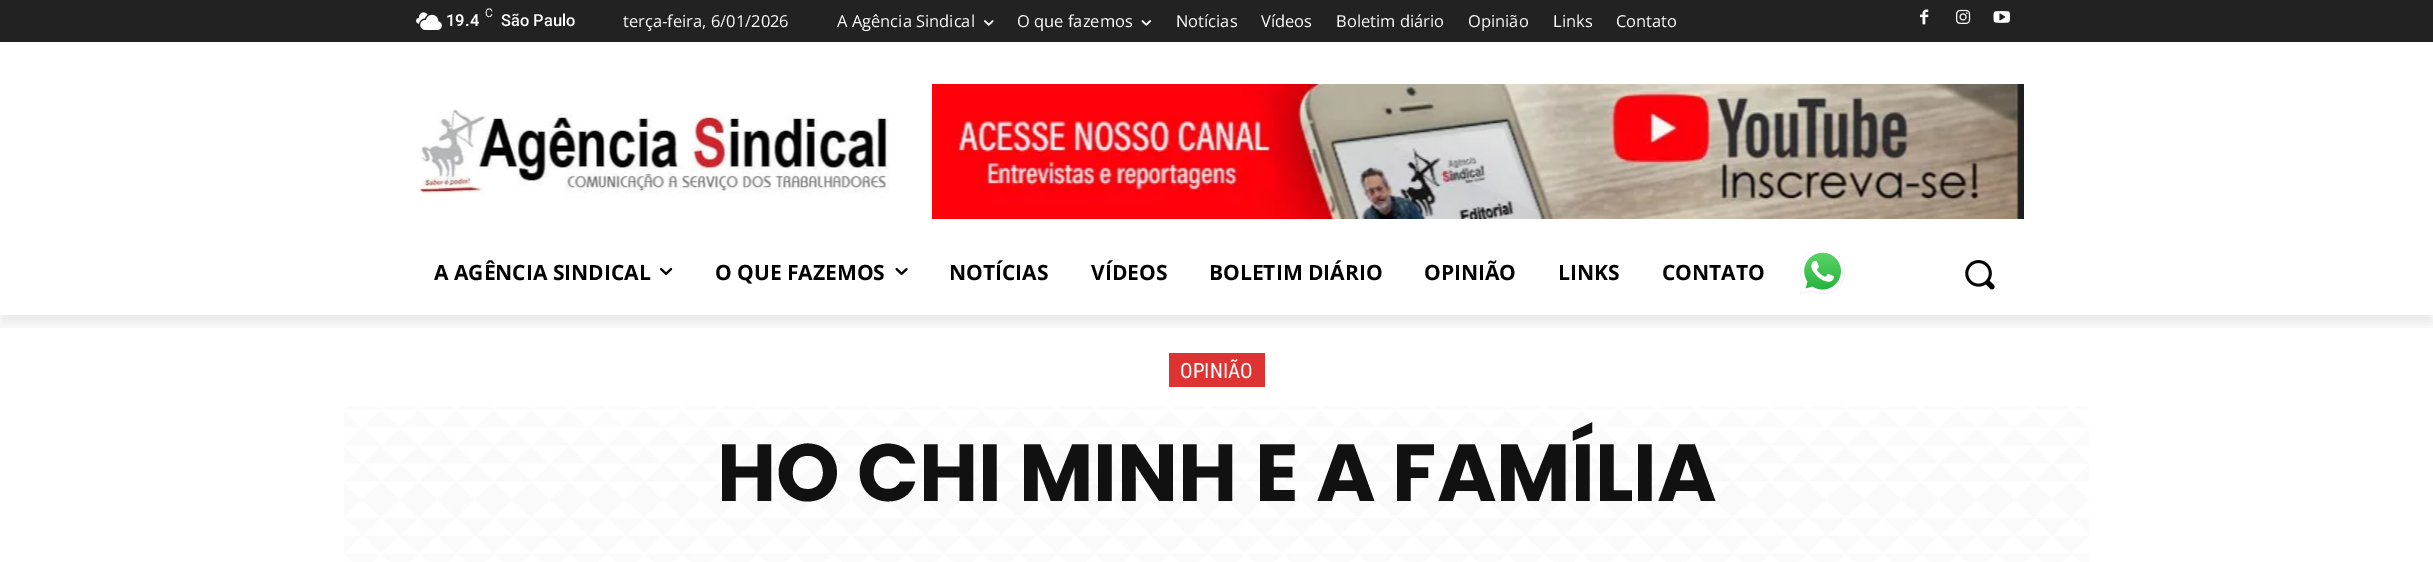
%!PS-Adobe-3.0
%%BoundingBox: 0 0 2433 562
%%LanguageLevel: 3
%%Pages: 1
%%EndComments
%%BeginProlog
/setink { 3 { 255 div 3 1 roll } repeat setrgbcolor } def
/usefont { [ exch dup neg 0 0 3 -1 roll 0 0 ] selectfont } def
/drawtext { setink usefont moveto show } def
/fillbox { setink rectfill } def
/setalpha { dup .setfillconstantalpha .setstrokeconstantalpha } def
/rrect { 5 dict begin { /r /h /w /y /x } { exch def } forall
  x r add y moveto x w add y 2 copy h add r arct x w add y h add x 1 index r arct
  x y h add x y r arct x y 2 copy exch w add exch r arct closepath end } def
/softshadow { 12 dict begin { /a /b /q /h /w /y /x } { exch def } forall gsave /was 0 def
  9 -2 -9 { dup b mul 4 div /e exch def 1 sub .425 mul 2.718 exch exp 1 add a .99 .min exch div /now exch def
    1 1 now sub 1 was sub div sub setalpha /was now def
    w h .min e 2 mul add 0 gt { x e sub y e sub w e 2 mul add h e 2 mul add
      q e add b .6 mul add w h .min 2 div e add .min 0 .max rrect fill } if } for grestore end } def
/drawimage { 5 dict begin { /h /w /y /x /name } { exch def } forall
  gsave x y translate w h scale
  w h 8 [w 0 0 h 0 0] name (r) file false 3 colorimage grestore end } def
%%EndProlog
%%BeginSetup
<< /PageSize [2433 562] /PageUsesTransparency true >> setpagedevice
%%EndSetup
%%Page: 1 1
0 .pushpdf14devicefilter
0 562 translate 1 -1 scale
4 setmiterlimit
0 0 2433 562 255 255 255 fillbox
0 0 2433 42 34 34 34 fillbox
(assets/img1.rgb) 416 12 26 18 drawimage
(assets/img4.rgb) 1920 9 9 16 drawimage
(assets/img5.rgb) 1956 9 15 15 drawimage
(assets/img6.rgb) 1993 11 17 12 drawimage
(assets/img7.rgb) 416 109 474 89 drawimage
(assets/img8.rgb) 932 84 1092 135 drawimage
(assets/img11.rgb) 1800 249 45 45 drawimage
gsave
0 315 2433 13 rectclip
0 0 0 setink
0 9 2433 315 0 6 0.08 softshadow
grestore
(C) 485 17 /Roboto-Regular 12 255 255 255 drawtext
(19.4) 446 26 /Roboto-SemiBold 16.5 255 255 255 drawtext
(São Paulo) 501 26 /Roboto-Medium 16.5 255 255 255 drawtext
(terça-feira, 6/01/2026) 623 27 /OpenSans-Regular 16.5 255 255 255 drawtext
(A Agência Sindical) 837 27 /OpenSans-Regular 16.5 255 255 255 drawtext
(assets/img2.rgb) 984 20 10 6 drawimage
(O que fazemos) 1017 27 /OpenSans-Regular 16.5 255 255 255 drawtext
(assets/img3.rgb) 1141 20 10 6 drawimage
(Notícias) 1176 27 /OpenSans-Regular 16.5 255 255 255 drawtext
(Vídeos) 1261 27 /OpenSans-Regular 16.5 255 255 255 drawtext
(Boletim diário) 1336 27 /OpenSans-Regular 16.5 255 255 255 drawtext
(Opinião) 1468 27 /OpenSans-Regular 16.5 255 255 255 drawtext
(Links) 1553 27 /OpenSans-Regular 16.5 255 255 255 drawtext
(Contato) 1616 27 /OpenSans-Regular 16.5 255 255 255 drawtext
(A AGÊNCIA SINDICAL) 434 280 /OpenSans-Bold 21 0 0 0 drawtext
(assets/img9.rgb) 660 267 13 8 drawimage
(O QUE FAZEMOS) 715 280 /OpenSans-Bold 21 0 0 0 drawtext
(assets/img10.rgb) 895 267 13 8 drawimage
(NOTÍCIAS) 949 280 /OpenSans-Bold 21 0 0 0 drawtext
(VÍDEOS) 1091 280 /OpenSans-Bold 21 0 0 0 drawtext
(BOLETIM DIÁRIO) 1209 280 /OpenSans-Bold 21 0 0 0 drawtext
(OPINIÃO) 1424 280 /OpenSans-Bold 21 0 0 0 drawtext
(LINKS) 1558 280 /OpenSans-Bold 21 0 0 0 drawtext
(CONTATO) 1662 280 /OpenSans-Bold 21 0 0 0 drawtext
(assets/img12.rgb) 1965 260 30 30 drawimage
1169 353 96 34 221 51 51 fillbox
(OPINIÃO) 1180 378 /RobotoCondensed-Regular 21 255 255 255 drawtext
(assets/img13.rgb) 344 406 1745 156 drawimage
(HO CHI MINH E A FAMÍLIA) 717 501 /Poppins-Bold 81 17 17 17 drawtext
.poppdf14devicefilter showpage
%%EOF
